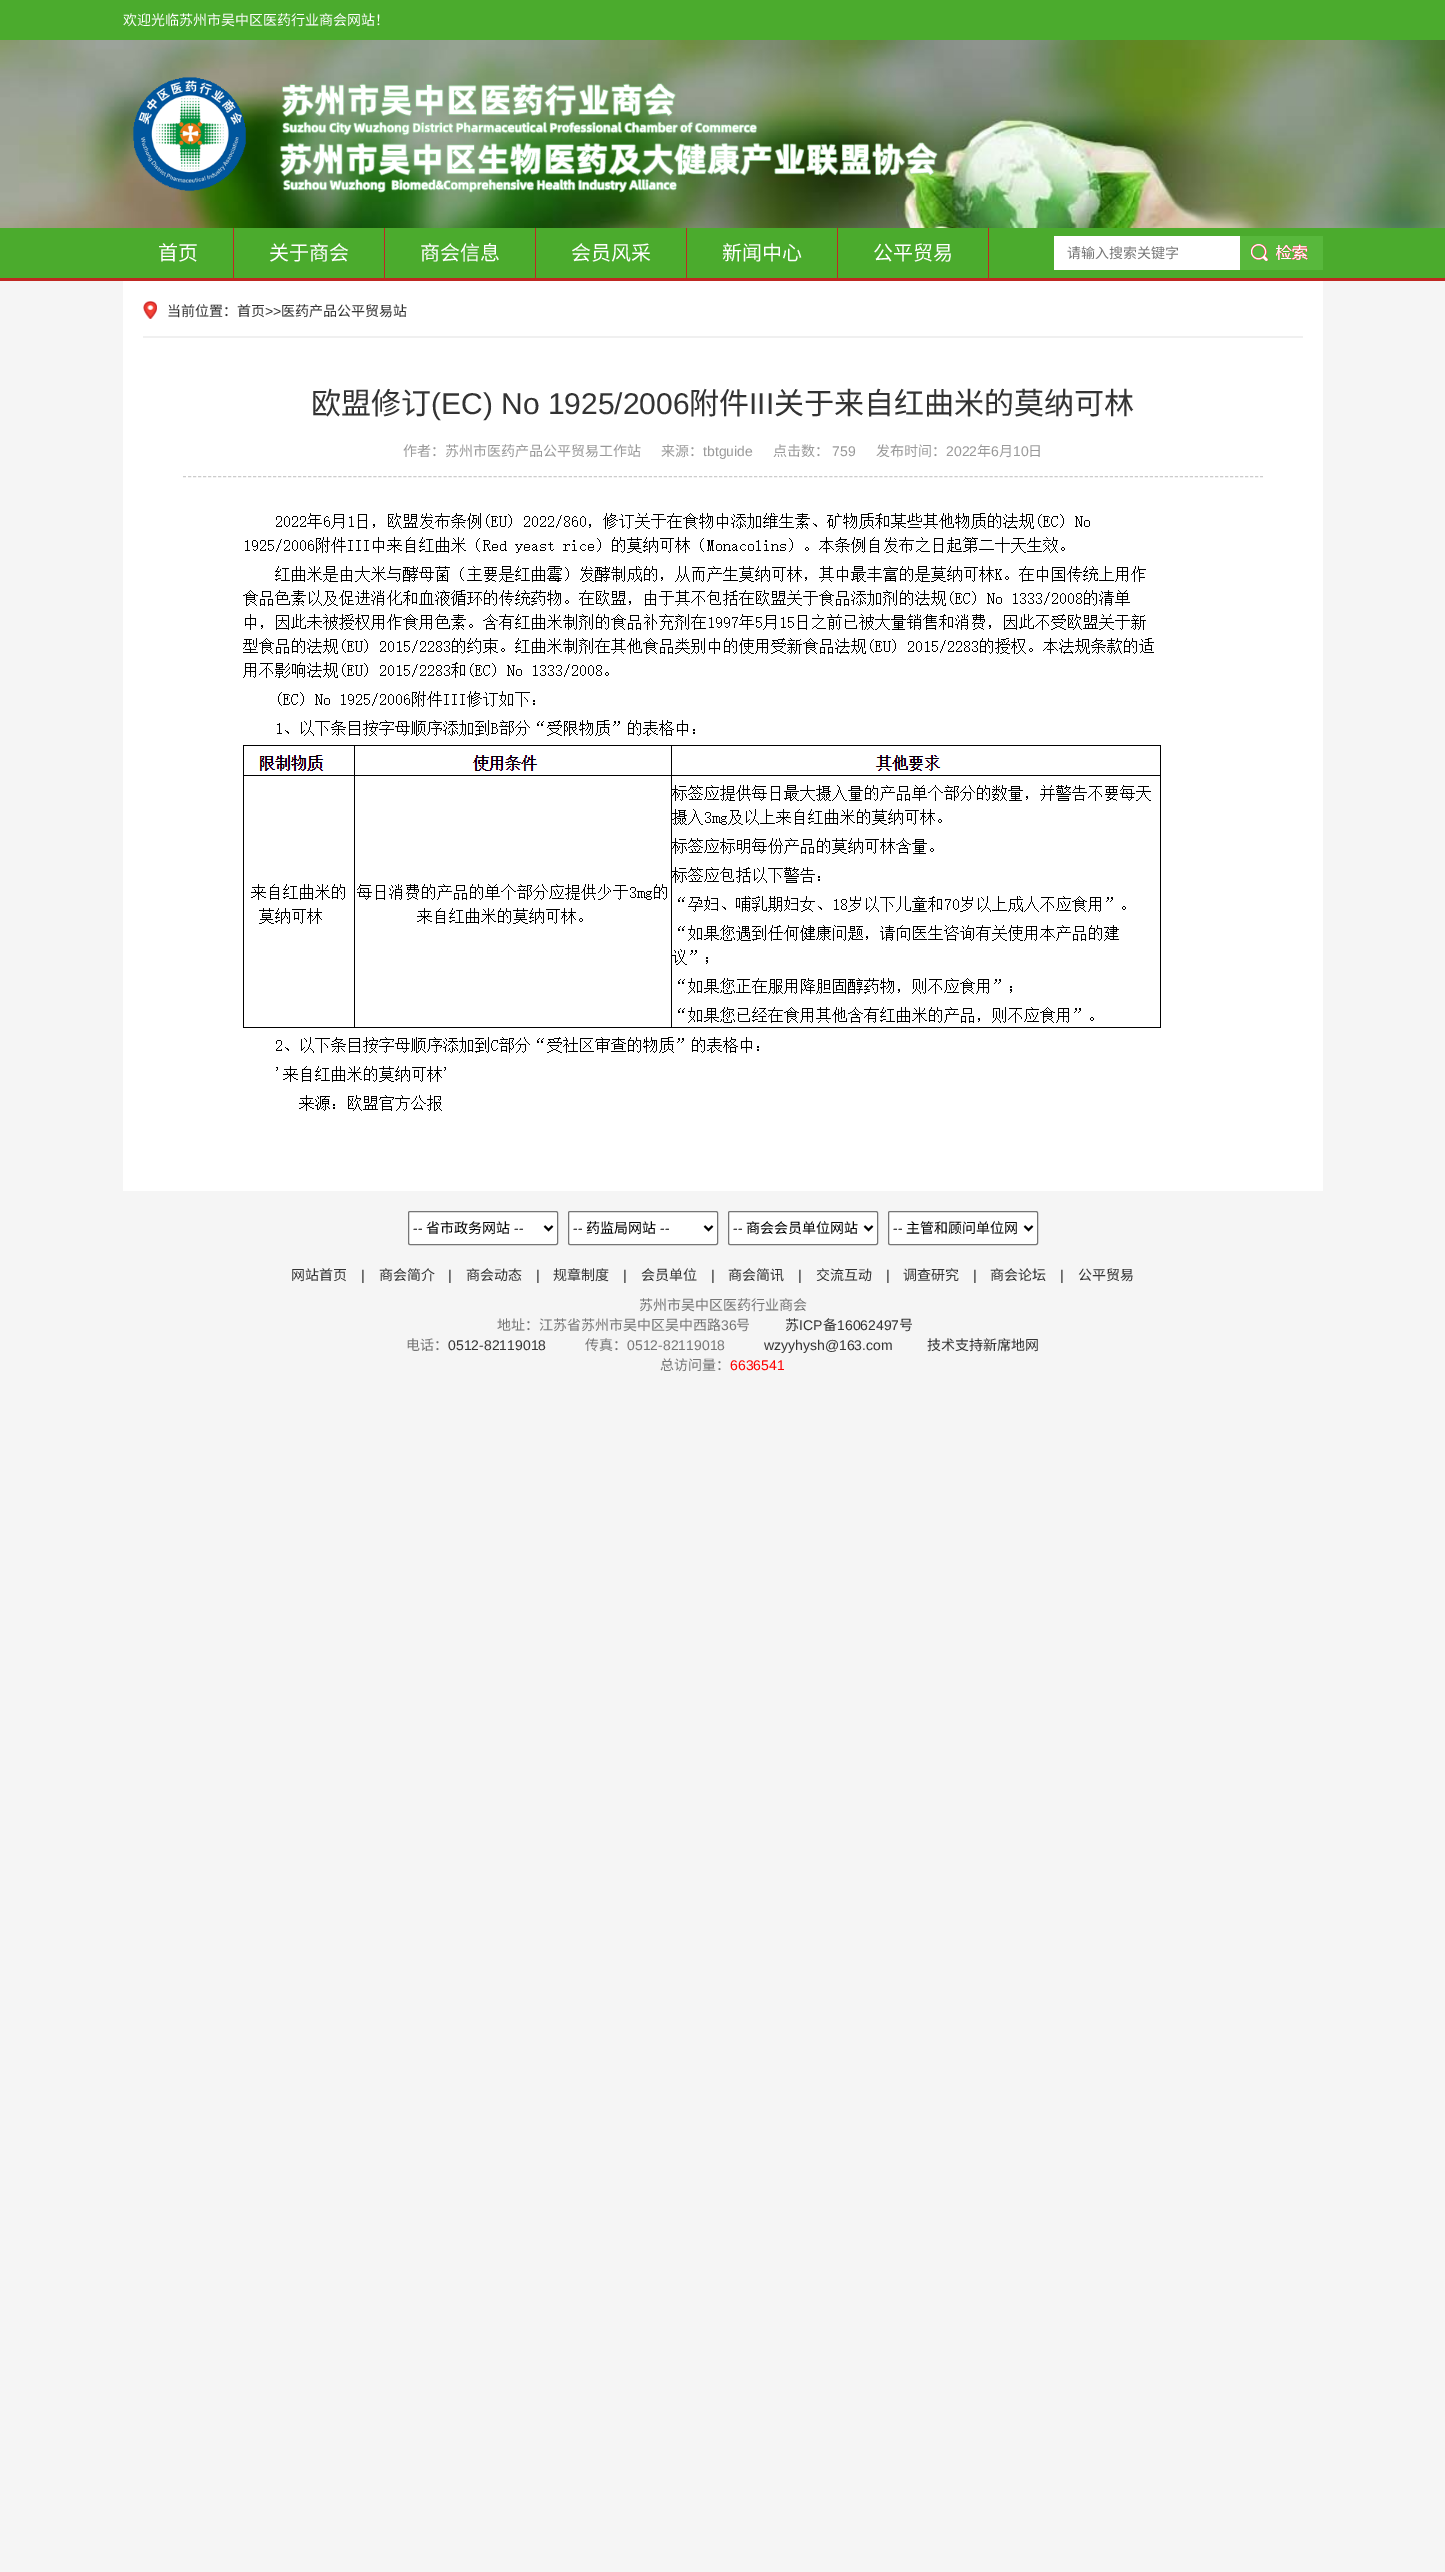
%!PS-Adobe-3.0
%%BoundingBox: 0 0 1445 2572
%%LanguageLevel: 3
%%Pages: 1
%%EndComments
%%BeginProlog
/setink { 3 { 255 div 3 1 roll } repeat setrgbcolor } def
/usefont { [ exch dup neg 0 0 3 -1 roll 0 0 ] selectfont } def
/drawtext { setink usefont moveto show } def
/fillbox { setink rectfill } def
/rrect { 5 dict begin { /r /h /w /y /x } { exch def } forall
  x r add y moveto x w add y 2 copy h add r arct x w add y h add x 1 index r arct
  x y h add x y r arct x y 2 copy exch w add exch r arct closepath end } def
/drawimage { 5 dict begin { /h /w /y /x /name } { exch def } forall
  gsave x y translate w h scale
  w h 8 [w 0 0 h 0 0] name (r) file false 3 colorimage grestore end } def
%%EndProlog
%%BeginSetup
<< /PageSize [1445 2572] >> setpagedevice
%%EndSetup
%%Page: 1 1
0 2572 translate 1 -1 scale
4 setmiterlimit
0 0 1445 2572 245 245 245 fillbox
(assets/img1.rgb) 0 40 1445 188 drawimage
0 0 1445 40 75 171 45 fillbox
(欢迎光临苏州市吴中区医药行业商会网站！) 123 25 /NotoSansCJKSC-Regular 14 255 255 255 drawtext
(assets/img2.rgb) 133 77 805 116 drawimage
0 228 1445 50 75 171 45 fillbox
0 278 1445 3 191 40 34 fillbox
233 228 1 50 191 40 34 fillbox
(首页) 158 260 /NotoSansCJKSC-Regular 20 255 255 255 drawtext
384 228 1 50 191 40 34 fillbox
(关于商会) 269 260 /NotoSansCJKSC-Regular 20 255 255 255 drawtext
535 228 1 50 191 40 34 fillbox
(商会信息) 420 260 /NotoSansCJKSC-Regular 20 255 255 255 drawtext
686 228 1 50 191 40 34 fillbox
(会员风采) 571 260 /NotoSansCJKSC-Regular 20 255 255 255 drawtext
837 228 1 50 191 40 34 fillbox
(新闻中心) 722 260 /NotoSansCJKSC-Regular 20 255 255 255 drawtext
988 228 1 50 191 40 34 fillbox
(公平贸易) 873 260 /NotoSansCJKSC-Regular 20 255 255 255 drawtext
1054 236 186 34 255 255 255 fillbox
(请输入搜索关键字) 1067 258 /NotoSansCJKSC-Regular 14 117 117 117 drawtext
(assets/img3.rgb) 1240 236 83 34 drawimage
123 281 1200 910 255 255 255 fillbox
(assets/img4.rgb) 143 301 14 18 drawimage
143 336 1160 2 240 240 240 fillbox
(当前位置：首页) 167 316 /NotoSansCJKSC-Regular 14 51 51 51 drawtext
(>>) 265 316 /LiberationSans-Regular 14 51 51 51 drawtext
(医药产品公平贸易站) 281 316 /NotoSansCJKSC-Regular 14 51 51 51 drawtext
204 204 204 setink
[3 2.01] 0 setdash
183 476.5 moveto 1263 476.5 lineto stroke
(欧盟修订) 311 414 /NotoSansCJKSC-Regular 30 51 51 51 drawtext
(\(EC\) No 1925/2006) 431 414 /LiberationSans-Regular 30 51 51 51 drawtext
(附件) 689 414 /NotoSansCJKSC-Regular 30 51 51 51 drawtext
(III) 749 414 /LiberationSans-Regular 30 51 51 51 drawtext
(关于来自红曲米的莫纳可林) 774 414 /NotoSansCJKSC-Regular 30 51 51 51 drawtext
(作者：苏州市医药产品公平贸易工作站) 403 456 /NotoSansCJKSC-Regular 14 153 153 153 drawtext
(来源：) 661 456 /NotoSansCJKSC-Regular 14 153 153 153 drawtext
(tbtguide) 703 456 /LiberationSans-Regular 14 153 153 153 drawtext
(点击数：) 773 456 /NotoSansCJKSC-Regular 14 153 153 153 drawtext
(759) 832 456 /LiberationSans-Regular 14 153 153 153 drawtext
(发布时间：) 876 456 /NotoSansCJKSC-Regular 14 153 153 153 drawtext
(2022) 946 456 /LiberationSans-Regular 14 153 153 153 drawtext
(年) 977 456 /NotoSansCJKSC-Regular 14 153 153 153 drawtext
(6) 991 456 /LiberationSans-Regular 14 153 153 153 drawtext
(月) 999 456 /NotoSansCJKSC-Regular 14 153 153 153 drawtext
(10) 1013 456 /LiberationSans-Regular 14 153 153 153 drawtext
(日) 1028 456 /NotoSansCJKSC-Regular 14 153 153 153 drawtext
(assets/img5.rgb) 243 513 918 598 drawimage
255 255 255 setink
408.5 1211.5 149 33 1.5 rrect gsave fill grestore
118 118 118 setink
[] 0 setdash
stroke
0 0 0 setink
2 setlinewidth
544.5 1226 moveto 548.5 1230 lineto 552.5 1226 lineto stroke
(--) 413 1233 /LiberationSans-Regular 14 0 0 0 drawtext
(省市政务网站) 426 1233 /NotoSansCJKSC-Regular 14 0 0 0 drawtext
(--) 514 1233 /LiberationSans-Regular 14 0 0 0 drawtext
255 255 255 setink
568.5 1211.5 149 33 1.5 rrect gsave fill grestore
118 118 118 setink
1 setlinewidth
stroke
0 0 0 setink
2 setlinewidth
704.5 1226 moveto 708.5 1230 lineto 712.5 1226 lineto stroke
(--) 573 1233 /LiberationSans-Regular 14 0 0 0 drawtext
(药监局网站) 586 1233 /NotoSansCJKSC-Regular 14 0 0 0 drawtext
(--) 660 1233 /LiberationSans-Regular 14 0 0 0 drawtext
255 255 255 setink
728.5 1211.5 149 33 1.5 rrect gsave fill grestore
118 118 118 setink
1 setlinewidth
stroke
0 0 0 setink
2 setlinewidth
864.5 1226 moveto 868.5 1230 lineto 872.5 1226 lineto stroke
(--) 733 1233 /LiberationSans-Regular 14 0 0 0 drawtext
(商会会员单位网站) 746 1233 /NotoSansCJKSC-Regular 14 0 0 0 drawtext
255 255 255 setink
888.5 1211.5 149 33 1.5 rrect gsave fill grestore
118 118 118 setink
1 setlinewidth
stroke
0 0 0 setink
2 setlinewidth
1024.5 1226 moveto 1028.5 1230 lineto 1032.5 1226 lineto stroke
(--) 893 1233 /LiberationSans-Regular 14 0 0 0 drawtext
(主管和顾问单位网) 906 1233 /NotoSansCJKSC-Regular 14 0 0 0 drawtext
(网站首页) 291 1280 /NotoSansCJKSC-Regular 14 51 51 51 drawtext
(|) 361 1280 /LiberationSans-Regular 14 51 51 51 drawtext
(商会简介) 379 1280 /NotoSansCJKSC-Regular 14 51 51 51 drawtext
(|) 448 1280 /LiberationSans-Regular 14 51 51 51 drawtext
(商会动态) 466 1280 /NotoSansCJKSC-Regular 14 51 51 51 drawtext
(|) 536 1280 /LiberationSans-Regular 14 51 51 51 drawtext
(规章制度) 553 1280 /NotoSansCJKSC-Regular 14 51 51 51 drawtext
(|) 623 1280 /LiberationSans-Regular 14 51 51 51 drawtext
(会员单位) 641 1280 /NotoSansCJKSC-Regular 14 51 51 51 drawtext
(|) 711 1280 /LiberationSans-Regular 14 51 51 51 drawtext
(商会简讯) 728 1280 /NotoSansCJKSC-Regular 14 51 51 51 drawtext
(|) 798 1280 /LiberationSans-Regular 14 51 51 51 drawtext
(交流互动) 816 1280 /NotoSansCJKSC-Regular 14 51 51 51 drawtext
(|) 886 1280 /LiberationSans-Regular 14 51 51 51 drawtext
(调查研究) 903 1280 /NotoSansCJKSC-Regular 14 51 51 51 drawtext
(|) 973 1280 /LiberationSans-Regular 14 51 51 51 drawtext
(商会论坛) 990 1280 /NotoSansCJKSC-Regular 14 51 51 51 drawtext
(|) 1060 1280 /LiberationSans-Regular 14 51 51 51 drawtext
(公平贸易) 1078 1280 /NotoSansCJKSC-Regular 14 51 51 51 drawtext
(苏州市吴中区医药行业商会) 639 1310 /NotoSansCJKSC-Regular 14 117 117 117 drawtext
(地址：江苏省苏州市吴中区吴中西路) 497 1330 /NotoSansCJKSC-Regular 14 117 117 117 drawtext
(36) 721 1330 /LiberationSans-Regular 14 117 117 117 drawtext
(号) 736 1330 /NotoSansCJKSC-Regular 14 117 117 117 drawtext
(苏) 785 1330 /NotoSansCJKSC-Regular 14 51 51 51 drawtext
(ICP) 799 1330 /LiberationSans-Regular 14 51 51 51 drawtext
(备) 823 1330 /NotoSansCJKSC-Regular 14 51 51 51 drawtext
(16062497) 837 1330 /LiberationSans-Regular 14 51 51 51 drawtext
(号) 899 1330 /NotoSansCJKSC-Regular 14 51 51 51 drawtext
(电话：) 406 1350 /NotoSansCJKSC-Regular 14 117 117 117 drawtext
(0512-82119018) 448 1350 /LiberationSans-Regular 14 51 51 51 drawtext
(传真：) 585 1350 /NotoSansCJKSC-Regular 14 117 117 117 drawtext
(0512-82119018) 627 1350 /LiberationSans-Regular 14 117 117 117 drawtext
(wzyyhysh@163.com) 764 1350 /LiberationSans-Regular 14 51 51 51 drawtext
(技术支持新席地网) 927 1350 /NotoSansCJKSC-Regular 14 51 51 51 drawtext
(总访问量：) 660 1370 /NotoSansCJKSC-Regular 14 117 117 117 drawtext
(6636541) 730 1370 /LiberationSans-Regular 14 255 0 0 drawtext
showpage
%%EOF
